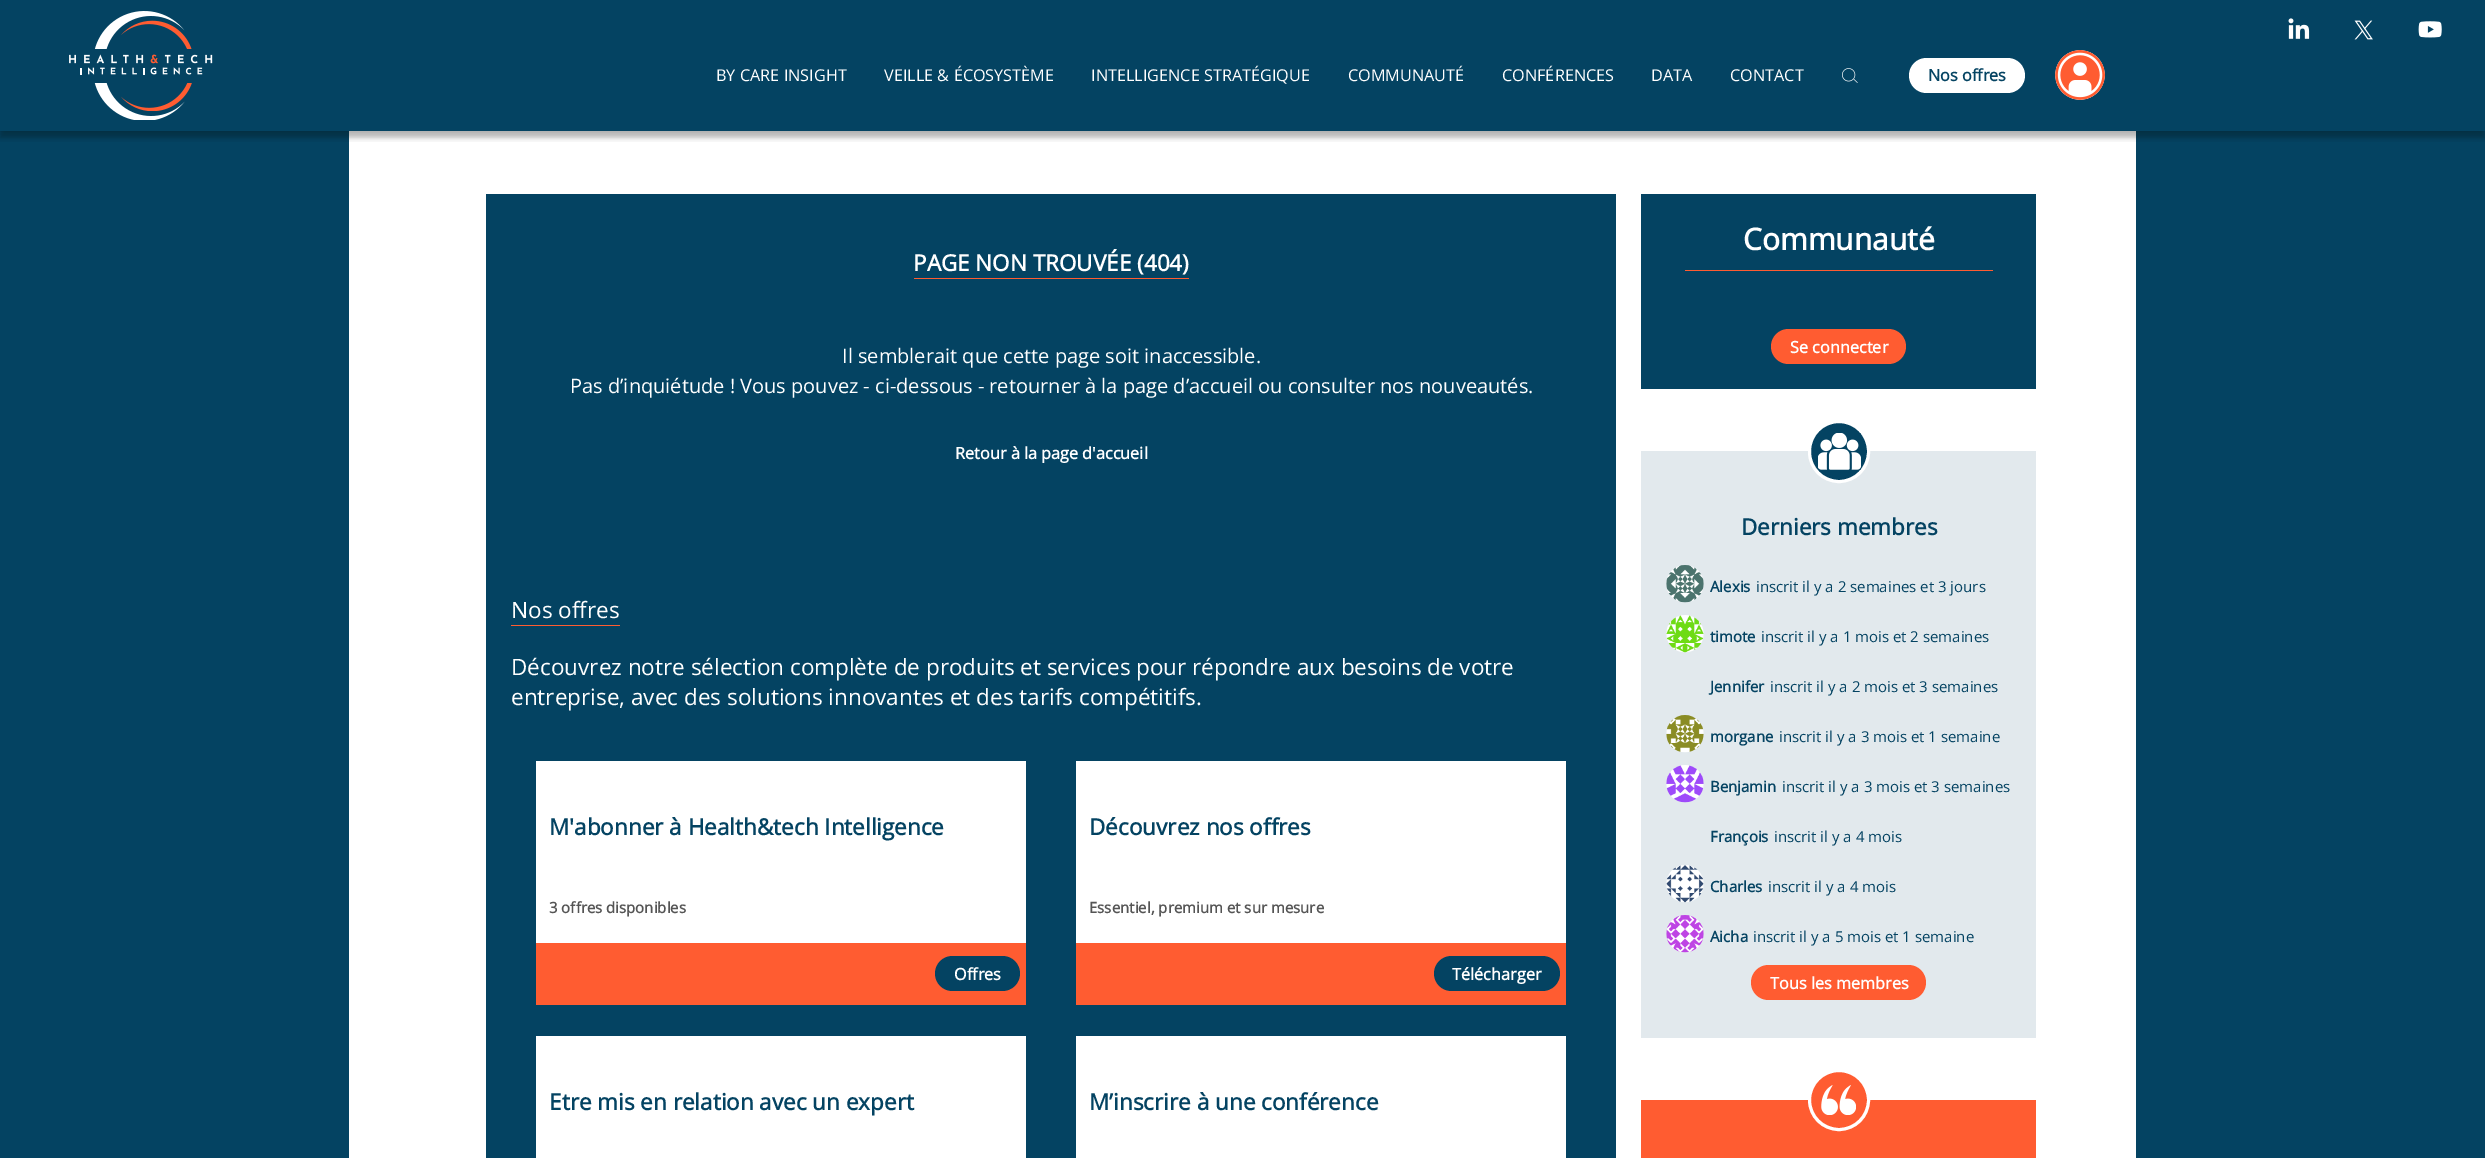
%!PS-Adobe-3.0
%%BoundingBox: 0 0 2485 1158
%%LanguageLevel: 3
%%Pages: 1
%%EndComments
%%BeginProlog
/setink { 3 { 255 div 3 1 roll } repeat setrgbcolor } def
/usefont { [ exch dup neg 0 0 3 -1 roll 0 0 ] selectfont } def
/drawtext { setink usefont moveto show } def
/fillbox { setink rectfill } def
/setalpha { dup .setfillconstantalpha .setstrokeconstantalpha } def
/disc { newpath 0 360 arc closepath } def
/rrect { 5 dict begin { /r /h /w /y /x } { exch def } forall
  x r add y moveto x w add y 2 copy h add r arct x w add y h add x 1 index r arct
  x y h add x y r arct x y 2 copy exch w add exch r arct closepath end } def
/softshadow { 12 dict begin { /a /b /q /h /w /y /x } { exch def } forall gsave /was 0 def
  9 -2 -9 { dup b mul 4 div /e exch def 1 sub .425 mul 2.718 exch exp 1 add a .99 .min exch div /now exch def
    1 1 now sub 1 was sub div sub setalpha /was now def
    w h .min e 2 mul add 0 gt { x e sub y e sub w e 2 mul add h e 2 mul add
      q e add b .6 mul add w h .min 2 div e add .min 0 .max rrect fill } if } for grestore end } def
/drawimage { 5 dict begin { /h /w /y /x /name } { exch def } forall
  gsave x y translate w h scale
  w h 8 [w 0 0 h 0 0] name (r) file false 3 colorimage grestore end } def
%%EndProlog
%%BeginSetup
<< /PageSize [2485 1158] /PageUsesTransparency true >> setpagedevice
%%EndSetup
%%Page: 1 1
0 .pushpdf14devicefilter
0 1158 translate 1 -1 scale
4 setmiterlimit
0 0 2485 1158 4 67 98 fillbox
349 131 1787 1027 255 255 255 fillbox
gsave
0 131 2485 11 rectclip
0 0 0 setink
0 6 2485 132 0 3 0.23 softshadow
grestore
gsave
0 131 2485 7 rectclip
0 0 0 setink
0 0 2485 131 0 6 0.19 softshadow
grestore
(assets/img1.rgb) 69 11 144 109 drawimage
(assets/img2.rgb) 2288 18 22 21 drawimage
(assets/img3.rgb) 2354 20 19 20 drawimage
(assets/img4.rgb) 2418 21 24 17 drawimage
(BY CARE INSIGHT) 716 81 /OpenSans-Regular 16.25 255 255 255 drawtext
(VEILLE & ÉCOSYSTÈME) 884 81 /OpenSans-Regular 16.25 255 255 255 drawtext
(INTELLIGENCE STRATÉGIQUE) 1091 81 /OpenSans-Regular 16.25 255 255 255 drawtext
(COMMUNAUTÉ) 1348 81 /OpenSans-Regular 16.25 255 255 255 drawtext
(CONFÉRENCES) 1502 81 /OpenSans-Regular 16.25 255 255 255 drawtext
(DATA) 1651 81 /OpenSans-Regular 16.25 255 255 255 drawtext
(CONTACT) 1730 81 /OpenSans-Regular 16.25 255 255 255 drawtext
(assets/img5.rgb) 1842 68 16 15 drawimage
1909 58 116 35 17.5 rrect fill
(Nos offres) 1928 81 /OpenSans-Bold 16.25 4 67 98 drawtext
(assets/img6.rgb) 2055 50 50 50 drawimage
486 194 1130 964 4 67 98 fillbox
914 278 275 1 255 92 49 fillbox
(PAGE NON TROUVÉE \(404\)) 913 271 /OpenSans-Bold 22.5 255 255 255 drawtext
(Il semblerait que cette page soit inaccessible.) 842 363 /OpenSans-Regular 20 255 255 255 drawtext
(Pas d’inquiétude ! Vous pouvez - ci-dessous - retourner à la page d’accueil ou consulter nos nouveautés.) 570 393 /OpenSans-Regular 20 255 255 255 drawtext
(Retour à la page d'accueil) 955 459 /OpenSans-Bold 16.25 255 255 255 drawtext
511 625 109 1 255 92 49 fillbox
(N) 511 618 /NotoSans-Regular 22.5 255 255 255 drawtext
(os offres) 528 618 /OpenSans-Regular 22.5 255 255 255 drawtext
(Découvrez notre sélection complète de produits et services pour répondre aux besoins de votre) 511 675 /OpenSans-Regular 22.5 255 255 255 drawtext
(entreprise, avec des solutions innovantes et des tarifs compétitifs.) 511 705 /OpenSans-Regular 22.5 255 255 255 drawtext
536 761 490 182 255 255 255 fillbox
(M'abonner à Health&tech Intelligence) 549 835 /OpenSans-Bold 22.5 4 67 98 drawtext
(3 offres disponibles) 549 913 /OpenSans-Bold 15 85 85 85 drawtext
536 943 490 62 255 92 49 fillbox
4 67 98 setink
935 956 85 35 17.5 rrect fill
(Offres) 954 980 /OpenSans-Bold 16.25 255 255 255 drawtext
1076 761 490 182 255 255 255 fillbox
(Découvrez nos offres) 1089 835 /OpenSans-Bold 22.5 4 67 98 drawtext
(Essentiel, premium et sur mesure) 1089 913 /OpenSans-Bold 15 85 85 85 drawtext
1076 943 490 62 255 92 49 fillbox
4 67 98 setink
1434 956 126 35 17.5 rrect fill
(Télécharger) 1452 980 /OpenSans-Bold 16.25 255 255 255 drawtext
536 1036 490 122 255 255 255 fillbox
(Etre mis en relation avec un expert) 549 1110 /OpenSans-Bold 22.5 4 67 98 drawtext
1076 1036 490 122 255 255 255 fillbox
(M’inscrire à une conférence) 1089 1110 /OpenSans-Bold 22.5 4 67 98 drawtext
1641 194 395 195 4 67 98 fillbox
1685 270 308 1 255 92 49 fillbox
(Communauté) 1743 250 /OpenSans-Bold 30 255 255 255 drawtext
255 92 49 setink
1771 329 135 35 17.5 rrect fill
(Se connecter) 1790 353 /OpenSans-Bold 16.25 255 255 255 drawtext
1641 451 395 587 226 233 237 fillbox
4 67 98 setink
1809.5 421.5 59 60 29.5 rrect gsave fill grestore
255 255 255 setink
3 setlinewidth
stroke
(assets/img7.rgb) 1818 433 43 37 drawimage
(Derniers membres) 1741 535 /OpenSans-Bold 22.5 4 67 98 drawtext
(assets/img8.rgb) 1666 565 38 38 drawimage
(Alexis) 1710 592 /OpenSans-Bold 15 4 67 98 drawtext
(inscrit il y a 2 semaines et 3 jours) 1756 592 /OpenSans-Regular 15 4 67 98 drawtext
(assets/img9.rgb) 1666 615 38 38 drawimage
(timote) 1710 642 /OpenSans-Bold 15 4 67 98 drawtext
(inscrit il y a 1 mois et 2 semaines) 1761 642 /OpenSans-Regular 15 4 67 98 drawtext
(Jennifer) 1710 692 /OpenSans-Bold 15 4 67 98 drawtext
(inscrit il y a 2 mois et 3 semaines) 1770 692 /OpenSans-Regular 15 4 67 98 drawtext
(assets/img10.rgb) 1666 715 38 38 drawimage
(morgane) 1710 742 /OpenSans-Bold 15 4 67 98 drawtext
(inscrit il y a 3 mois et 1 semaine) 1779 742 /OpenSans-Regular 15 4 67 98 drawtext
(assets/img11.rgb) 1666 765 38 38 drawimage
(Benjamin) 1710 792 /OpenSans-Bold 15 4 67 98 drawtext
(inscrit il y a 3 mois et 3 semaines) 1782 792 /OpenSans-Regular 15 4 67 98 drawtext
(François) 1710 842 /OpenSans-Bold 15 4 67 98 drawtext
(inscrit il y a 4 mois) 1774 842 /OpenSans-Regular 15 4 67 98 drawtext
(assets/img12.rgb) 1666 865 38 38 drawimage
(Charles) 1710 892 /OpenSans-Bold 15 4 67 98 drawtext
(inscrit il y a 4 mois) 1768 892 /OpenSans-Regular 15 4 67 98 drawtext
(assets/img13.rgb) 1666 915 38 38 drawimage
(Aicha) 1710 942 /OpenSans-Bold 15 4 67 98 drawtext
(inscrit il y a 5 mois et 1 semaine) 1753 942 /OpenSans-Regular 15 4 67 98 drawtext
255 92 49 setink
1751 965 175 35 17.5 rrect fill
(Tous les membres) 1770 989 /OpenSans-Bold 16.25 255 255 255 drawtext
1641 1100 395 58 255 92 49 fillbox
1839 1100 29.5 disc gsave fill grestore
255 255 255 setink
stroke
(assets/img14.rgb) 1821 1085 35 30 drawimage
.poppdf14devicefilter showpage
%%EOF
